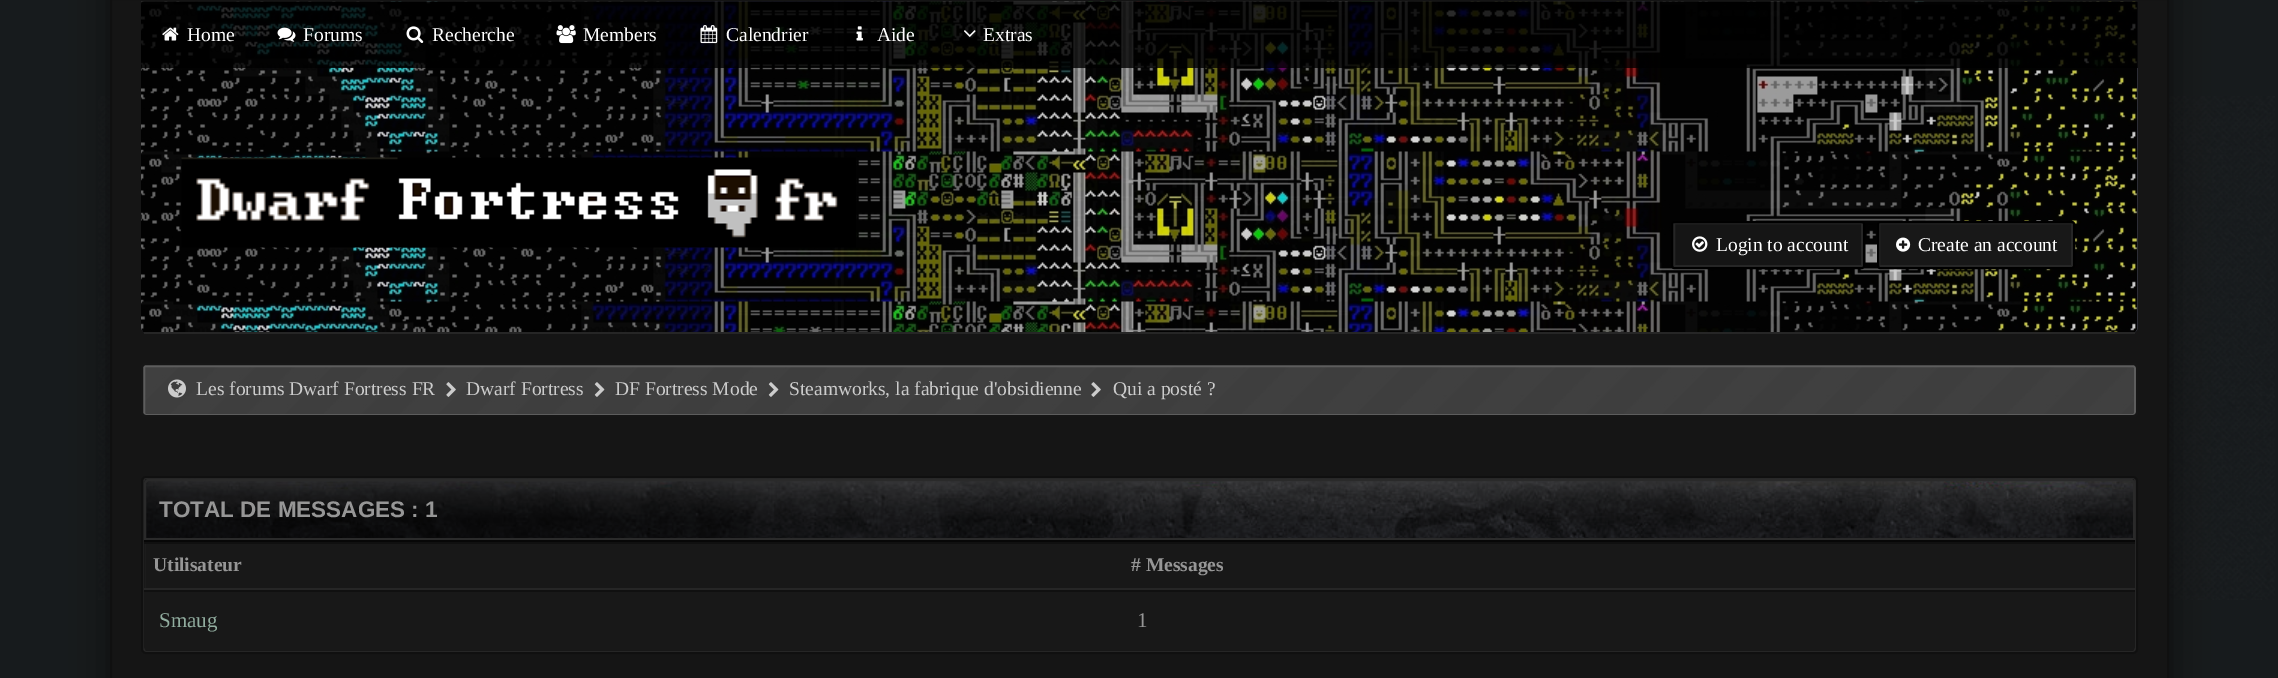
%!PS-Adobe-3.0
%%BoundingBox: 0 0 2278 678
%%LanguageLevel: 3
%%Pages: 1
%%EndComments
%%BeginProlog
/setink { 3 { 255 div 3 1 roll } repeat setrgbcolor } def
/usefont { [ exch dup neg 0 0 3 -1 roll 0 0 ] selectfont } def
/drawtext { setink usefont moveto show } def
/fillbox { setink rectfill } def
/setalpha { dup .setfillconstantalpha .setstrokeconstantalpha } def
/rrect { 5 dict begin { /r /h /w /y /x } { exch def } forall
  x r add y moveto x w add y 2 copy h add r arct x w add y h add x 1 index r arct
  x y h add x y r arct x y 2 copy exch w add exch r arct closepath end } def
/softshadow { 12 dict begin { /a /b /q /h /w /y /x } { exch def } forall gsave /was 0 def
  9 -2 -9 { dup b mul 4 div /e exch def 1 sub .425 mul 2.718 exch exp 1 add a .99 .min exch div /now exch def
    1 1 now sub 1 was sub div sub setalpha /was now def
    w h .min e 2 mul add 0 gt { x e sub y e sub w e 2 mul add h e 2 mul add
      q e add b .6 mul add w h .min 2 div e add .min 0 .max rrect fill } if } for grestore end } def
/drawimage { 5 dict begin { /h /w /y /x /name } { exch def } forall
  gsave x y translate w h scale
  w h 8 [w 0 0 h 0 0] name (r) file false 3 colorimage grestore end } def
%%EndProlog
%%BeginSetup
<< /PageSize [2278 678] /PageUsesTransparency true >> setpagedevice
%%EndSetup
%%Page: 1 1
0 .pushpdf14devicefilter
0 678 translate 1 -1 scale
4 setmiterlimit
0 0 2278 678 23 27 29 fillbox
(assets/img1.rgb) 98 96 2177 504 drawimage
13 13 13 setink
110 -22 2059 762 5 19 1 softshadow
21 21 21 setink
111 -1 moveto 2168 -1 lineto 2168 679 lineto 111 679 lineto closepath gsave fill grestore
16 16 16 setink
2 setlinewidth
stroke
57 59 71 setink
141 2 moveto 2138 2 lineto 2138 327 lineto 2138 330.5 2135.5 333 2132 333 curveto 147 333 lineto 143.5 333 141 330.5 141 327 curveto closepath fill
(assets/img9.rgb) 141 1 1997 331 drawimage
0.8 setalpha
141 2 1997 66 0 0 0 fillbox
1 setalpha
(assets/img2.rgb) 162 27 17 14 drawimage
(Home) 187 41 /LiberationSerif-Regular 19.5 255 255 255 drawtext
(assets/img3.rgb) 277 27 19 15 drawimage
(Forums) 303 41 /LiberationSerif-Regular 19.5 255 255 255 drawtext
(assets/img4.rgb) 406 26 18 17 drawimage
(Recherche) 432 41 /LiberationSerif-Regular 19.5 255 255 255 drawtext
(assets/img5.rgb) 556 25 20 19 drawimage
(Members) 583 41 /LiberationSerif-Regular 19.5 255 255 255 drawtext
(assets/img6.rgb) 700 25 18 19 drawimage
(Calendrier) 726 41 /LiberationSerif-Regular 19.5 255 255 255 drawtext
(assets/img7.rgb) 856 26 7 15 drawimage
(Aide) 877 41 /LiberationSerif-Regular 19.5 255 255 255 drawtext
(assets/img8.rgb) 964 30 12 7 drawimage
(Extras) 983 41 /LiberationSerif-Regular 19.5 255 255 255 drawtext
144 332 1991 2 38 38 38 fillbox
(assets/img10.rgb) 181 157 675 91 drawimage
21 21 21 setink
1674 223 188 43 0.5 rrect gsave fill grestore
38 38 38 setink
stroke
0 0 0 setink
1672 222 192 46 2 rrect stroke
(assets/img11.rgb) 1692 236 16 16 drawimage
(Login to account) 1716 251 /LiberationSerif-Regular 19.5 255 255 255 drawtext
24 24 24 setink
1878 222 195 45 1.5 rrect fill
(assets/img12.rgb) 2072 223 1 44 drawimage
38 38 38 setink
1879 223 193 43 0.5 rrect stroke
0 0 0 setink
1878 222 196 46 2 rrect stroke
(assets/img13.rgb) 1896 237 15 15 drawimage
(Create an account) 1918 251 /LiberationSerif-Regular 19.5 255 255 255 drawtext
(assets/img14.rgb) 143 365 1993 50 drawimage
93 93 93 setink
144 366 1991 49 2 rrect stroke
22 22 22 setink
142 364 1995 52 4 rrect stroke
(assets/img15.rgb) 168 379 18 19 drawimage
(Les forums Dwarf Fortress FR) 196 395 /LiberationSerif-Regular 19.5 204 204 204 drawtext
(assets/img16.rgb) 446 382 10 15 drawimage
(Dwarf Fortress) 466 395 /LiberationSerif-Regular 19.5 204 204 204 drawtext
(assets/img17.rgb) 594 382 11 15 drawimage
(DF Fortress Mode) 615 395 /LiberationSerif-Regular 19.5 204 204 204 drawtext
(assets/img18.rgb) 768 382 11 15 drawimage
(Steamworks, la fabrique d'obsidienne) 789 395 /LiberationSerif-Regular 19.5 204 204 204 drawtext
(assets/img19.rgb) 1091 382 10 15 drawimage
(Qui a posté ?) 1113 395 /LiberationSerif-Regular 19.5 204 204 204 drawtext
24 24 24 setink
144 478 1991 174 2 rrect gsave fill grestore
38 38 38 setink
stroke
16 16 16 setink
142 477 1995 176 4 rrect stroke
(assets/img20.rgb) 144 478 1990 60 drawimage
42 42 42 setink
149 480 moveto 2130 480 lineto 2132 480 2134 482 2134 484 curveto 2134 539 lineto 145 539 lineto 145 484 lineto 145 482 147 480 149 480 curveto closepath stroke
144 540 1991 2 7 7 7 fillbox
(TOTAL DE MESSAGES : 1) 159 517 /LiberationSans-Bold 22.5 150 150 150 drawtext
144 544 1 44 24 24 24 fillbox
144 542 1991 2 16 16 16 fillbox
144 588 1991 2 38 38 38 fillbox
(Utilisateur) 153 571 /LiberationSerif-Bold 19.5 150 150 150 drawtext
2134 544 1 44 24 24 24 fillbox
(# Messages) 1131 571 /LiberationSerif-Bold 19.5 150 150 150 drawtext
24 24 24 setink
144 590 moveto 1122 590 lineto 1122 651 lineto 149 651 lineto 146 651 144 649 144 646 curveto closepath fill
144 590 978 2 16 16 16 fillbox
(Smaug) 159 627 /LiberationSerif-Regular 21 145 173 159 drawtext
24 24 24 setink
1122 590 moveto 2135 590 lineto 2135 646 lineto 2135 649 2133 651 2130 651 curveto 1122 651 lineto closepath fill
1122 590 1013 2 16 16 16 fillbox
(1) 1137 627 /LiberationSerif-Regular 21 150 150 150 drawtext
.poppdf14devicefilter showpage
%%EOF
